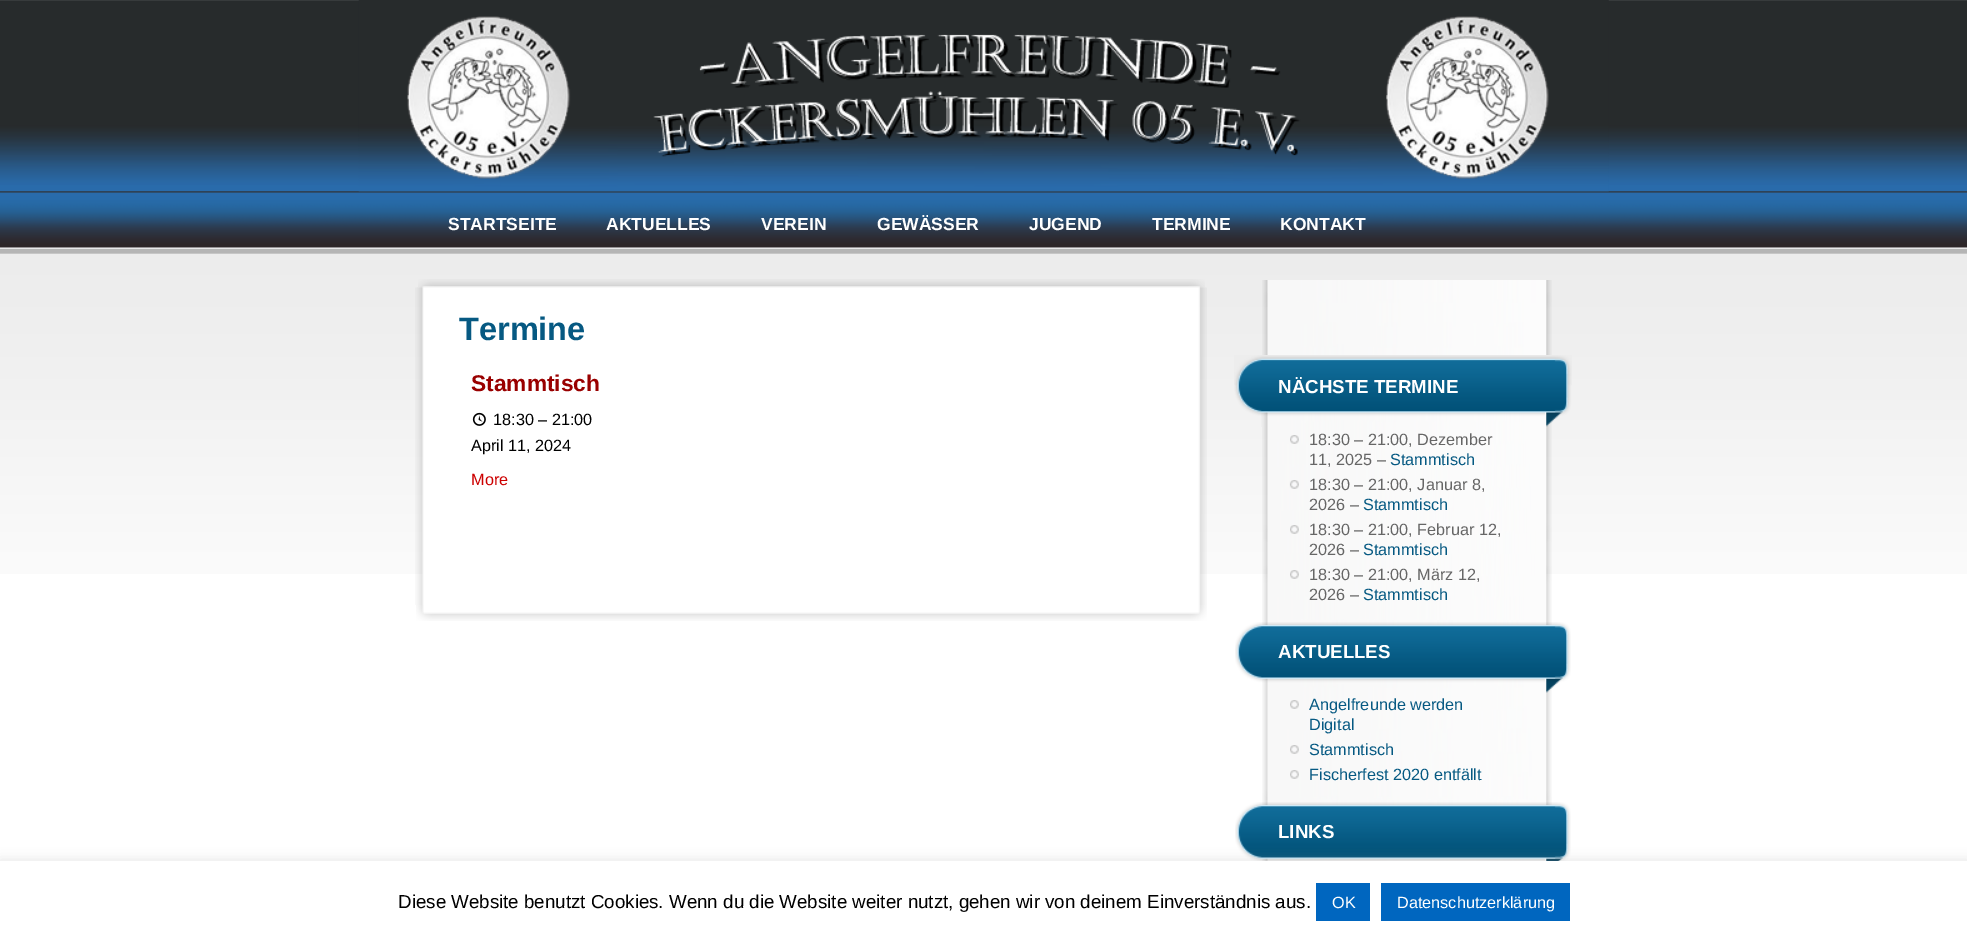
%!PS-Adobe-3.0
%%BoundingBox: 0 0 1967 936
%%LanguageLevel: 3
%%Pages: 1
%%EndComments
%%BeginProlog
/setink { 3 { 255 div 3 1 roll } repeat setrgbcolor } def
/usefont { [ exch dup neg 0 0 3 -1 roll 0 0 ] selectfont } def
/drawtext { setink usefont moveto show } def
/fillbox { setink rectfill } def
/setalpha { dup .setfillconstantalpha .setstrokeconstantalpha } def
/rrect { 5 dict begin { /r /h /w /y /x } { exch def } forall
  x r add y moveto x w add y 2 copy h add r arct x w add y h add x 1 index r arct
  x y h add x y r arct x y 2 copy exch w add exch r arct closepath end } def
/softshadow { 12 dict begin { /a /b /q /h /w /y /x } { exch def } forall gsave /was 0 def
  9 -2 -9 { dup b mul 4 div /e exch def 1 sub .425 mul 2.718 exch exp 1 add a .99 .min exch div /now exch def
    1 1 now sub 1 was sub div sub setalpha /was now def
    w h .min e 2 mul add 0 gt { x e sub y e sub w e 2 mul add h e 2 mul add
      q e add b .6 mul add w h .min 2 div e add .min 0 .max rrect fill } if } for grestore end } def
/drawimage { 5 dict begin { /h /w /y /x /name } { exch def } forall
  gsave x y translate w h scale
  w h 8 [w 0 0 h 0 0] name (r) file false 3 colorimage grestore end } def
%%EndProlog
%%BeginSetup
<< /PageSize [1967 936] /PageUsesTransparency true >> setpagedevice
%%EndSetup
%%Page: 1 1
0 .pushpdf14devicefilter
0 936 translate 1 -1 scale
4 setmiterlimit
0 0 1967 936 255 255 255 fillbox
(assets/img1.rgb) 0 0 1967 574 drawimage
(assets/img2.rgb) 358 0 1251 192 drawimage
(STARTSEITE) 448 230 /LiberationSans-Bold 17.5 255 255 255 drawtext
(AKTUELLES) 606 230 /LiberationSans-Bold 17.5 255 255 255 drawtext
(VEREIN) 761 230 /LiberationSans-Bold 17.5 255 255 255 drawtext
(GEWÄSSER) 877 230 /LiberationSans-Bold 17.5 255 255 255 drawtext
(JUGEND) 1029 230 /LiberationSans-Bold 17.5 255 255 255 drawtext
(TERMINE) 1152 230 /LiberationSans-Bold 17.5 255 255 255 drawtext
(KONTAKT) 1280 230 /LiberationSans-Bold 17.5 255 255 255 drawtext
(assets/img3.rgb) 418 279 787 9 drawimage
(assets/img4.rgb) 415 287 792 318 drawimage
(Termine) 459 340 /LiberationSans-Bold 32.5 6 89 130 drawtext
(Stammtisch) 471 391 /LiberationSans-Bold 22.75 153 0 0 drawtext
(assets/img5.rgb) 472 412 14 14 drawimage
(18:30 – 21:00) 493 425 /LiberationSans-Regular 16.25 0 0 0 drawtext
(April 11, 2024) 471 451 /LiberationSans-Regular 16.25 0 0 0 drawtext
(More) 471 485 /LiberationSans-Regular 16.25 204 0 0 drawtext
(assets/img6.rgb) 416 605 791 16 drawimage
(assets/img7.rgb) 1262 280 290 75 drawimage
(assets/img8.rgb) 1262 412 290 208 drawimage
(assets/img9.rgb) 1234 355 338 72 drawimage
(NÄCHSTE TERMINE) 1278 393 /LiberationSans-Bold 18.75 255 255 255 drawtext
(assets/img10.rgb) 1290 435 9 9 drawimage
(18:30 – 21:00, Dezember) 1309 445 /LiberationSans-Regular 16.25 102 102 102 drawtext
(11, 2025 –) 1309 465 /LiberationSans-Regular 16.25 102 102 102 drawtext
(Stammtisch) 1390 465 /LiberationSans-Regular 16.25 6 89 130 drawtext
(assets/img11.rgb) 1289 480 10 9 drawimage
(18:30 – 21:00, Januar 8,) 1309 490 /LiberationSans-Regular 16.25 102 102 102 drawtext
(2026 –) 1309 510 /LiberationSans-Regular 16.25 102 102 102 drawtext
(Stammtisch) 1363 510 /LiberationSans-Regular 16.25 6 89 130 drawtext
(assets/img10.rgb) 1290 525 9 9 drawimage
(18:30 – 21:00, Februar 12,) 1309 535 /LiberationSans-Regular 16.25 102 102 102 drawtext
(2026 –) 1309 555 /LiberationSans-Regular 16.25 102 102 102 drawtext
(Stammtisch) 1363 555 /LiberationSans-Regular 16.25 6 89 130 drawtext
(assets/img10.rgb) 1290 570 9 9 drawimage
(18:30 – 21:00, März 12,) 1309 580 /LiberationSans-Regular 16.25 102 102 102 drawtext
(2026 –) 1309 600 /LiberationSans-Regular 16.25 102 102 102 drawtext
(Stammtisch) 1363 600 /LiberationSans-Regular 16.25 6 89 130 drawtext
(assets/img12.rgb) 1262 620 290 180 drawimage
(assets/img13.rgb) 1235 622 336 71 drawimage
(AKTUELLES) 1278 658 /LiberationSans-Bold 18.75 255 255 255 drawtext
(assets/img10.rgb) 1290 700 9 9 drawimage
(Angelfreunde werden) 1309 710 /LiberationSans-Regular 16.25 6 89 130 drawtext
(Digital) 1309 730 /LiberationSans-Regular 16.25 6 89 130 drawtext
(assets/img10.rgb) 1290 745 9 9 drawimage
(Stammtisch) 1309 755 /LiberationSans-Regular 16.25 6 89 130 drawtext
(assets/img10.rgb) 1290 770 9 9 drawimage
(Fischerfest 2020 entfällt) 1309 780 /LiberationSans-Regular 16.25 6 89 130 drawtext
(assets/img14.rgb) 1262 800 290 61 drawimage
(assets/img15.rgb) 1235 802 336 59 drawimage
(LINKS) 1278 838 /LiberationSans-Bold 18.75 255 255 255 drawtext
172 171 171 setink
0 860 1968 75 0 6 0.3 softshadow
0 861 1967 75 255 255 255 fillbox
(Diese Website benutzt Cookies. Wenn du die Website weiter nutzt, gehen wir von deinem Einverständnis aus.) 398 908 /LiberationSans-Regular 18.75 0 0 0 drawtext
1316 883 54 38 0 102 191 fillbox
(OK) 1332 908 /LiberationSans-Regular 16.25 255 255 255 drawtext
1381 883 189 38 0 102 191 fillbox
(Datenschutzerklärung) 1397 908 /LiberationSans-Regular 16.25 255 255 255 drawtext
.poppdf14devicefilter showpage
%%EOF
